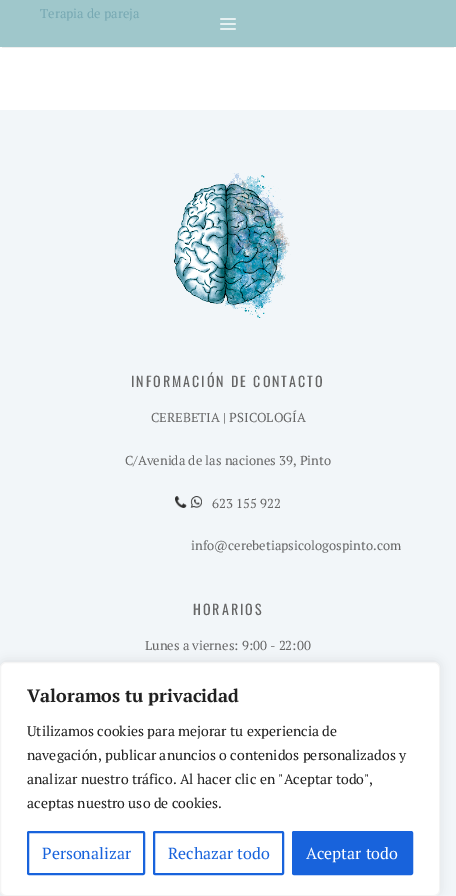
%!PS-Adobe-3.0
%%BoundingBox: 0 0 456 896
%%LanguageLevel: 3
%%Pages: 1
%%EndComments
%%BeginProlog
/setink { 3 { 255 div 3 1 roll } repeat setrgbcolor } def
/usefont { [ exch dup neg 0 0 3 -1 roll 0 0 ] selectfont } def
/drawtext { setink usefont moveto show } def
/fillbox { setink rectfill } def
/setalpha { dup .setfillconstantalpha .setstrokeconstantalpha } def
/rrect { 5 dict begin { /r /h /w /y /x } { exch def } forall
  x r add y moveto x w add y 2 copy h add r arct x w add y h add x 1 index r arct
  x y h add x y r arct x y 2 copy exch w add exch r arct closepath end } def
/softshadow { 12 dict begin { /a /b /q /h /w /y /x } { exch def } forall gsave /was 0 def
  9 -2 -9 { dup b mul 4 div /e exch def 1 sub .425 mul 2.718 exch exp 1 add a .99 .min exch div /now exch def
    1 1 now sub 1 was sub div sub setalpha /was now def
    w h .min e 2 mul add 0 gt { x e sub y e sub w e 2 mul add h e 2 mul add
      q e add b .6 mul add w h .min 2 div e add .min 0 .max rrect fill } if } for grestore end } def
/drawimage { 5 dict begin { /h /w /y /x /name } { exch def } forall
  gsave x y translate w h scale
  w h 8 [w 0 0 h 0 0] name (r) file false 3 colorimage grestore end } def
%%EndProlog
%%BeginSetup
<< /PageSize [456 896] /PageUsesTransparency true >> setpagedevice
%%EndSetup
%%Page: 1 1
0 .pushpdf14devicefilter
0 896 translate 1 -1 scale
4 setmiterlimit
0 0 456 896 255 255 255 fillbox
0 0 456 47 159 199 203 fillbox
gsave
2 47 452 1 rectclip
0 0 0 setink
2 4 452 43 0 1 0.2 softshadow
grestore
(assets/img1.rgb) 220 18 16 12 drawimage
(Terapia de pareja) 40 18 /PTSerif-Regular 13 118 168 178 drawtext
0 110 456 786 242 246 249 fillbox
(assets/img2.rgb) 173 173 118 145 drawimage
/Oswald-Regular 14 usefont
102 102 102 setink
131 387 moveto 2 0 (INFORMACIÓN DE CONTACTO) ashow
(CEREBETIA | PSICOLOGÍA) 151 422 /PTSerif-Regular 13 102 102 102 drawtext
(C/Avenida de las naciones 39, Pinto) 125 465 /PTSerif-Regular 13 102 102 102 drawtext
(assets/img3.rgb) 175 496 27 12 drawimage
(623 155 922) 212 508 /PTSerif-Regular 13 102 102 102 drawtext
(info@cerebetiapsicologospinto.com) 191 550 /PTSerif-Regular 13 102 102 102 drawtext
/Oswald-Regular 14 usefont
193 615 moveto 2 0 (HORARIOS) ashow
(Lunes a viernes: 9:00 - 22:00) 145 650 /PTSerif-Regular 13 102 102 102 drawtext
172 171 171 setink
0 661 440 234 6 5 0.3 softshadow
255 255 255 setink
0.5 662.5 439 233 5.5 rrect gsave fill grestore
244 244 244 setink
stroke
(Valoramos tu privacidad) 27 702 /PTSerif-Bold 18 33 33 33 drawtext
(Utilizamos cookies para mejorar tu experiencia de) 27 736 /PTSerif-Regular 14 33 33 33 drawtext
(navegación, publicar anuncios o contenidos personalizados y) 27 760 /PTSerif-Regular 14 33 33 33 drawtext
(analizar nuestro tráfico. Al hacer clic en "Aceptar todo",) 27 784 /PTSerif-Regular 14 33 33 33 drawtext
(aceptas nuestro uso de cookies.) 27 808 /PTSerif-Regular 14 33 33 33 drawtext
24 99 220 setink
2 setlinewidth
28 832 116 42 1 rrect stroke
(Personalizar) 42 859 /PTSerif-Regular 16 24 99 220 drawtext
154 832 129 42 1 rrect stroke
(Rechazar todo) 168 859 /PTSerif-Regular 16 24 99 220 drawtext
293 832 119 42 1 rrect gsave fill grestore
stroke
(Aceptar todo) 306 859 /PTSerif-Regular 16 255 255 255 drawtext
.poppdf14devicefilter showpage
%%EOF
